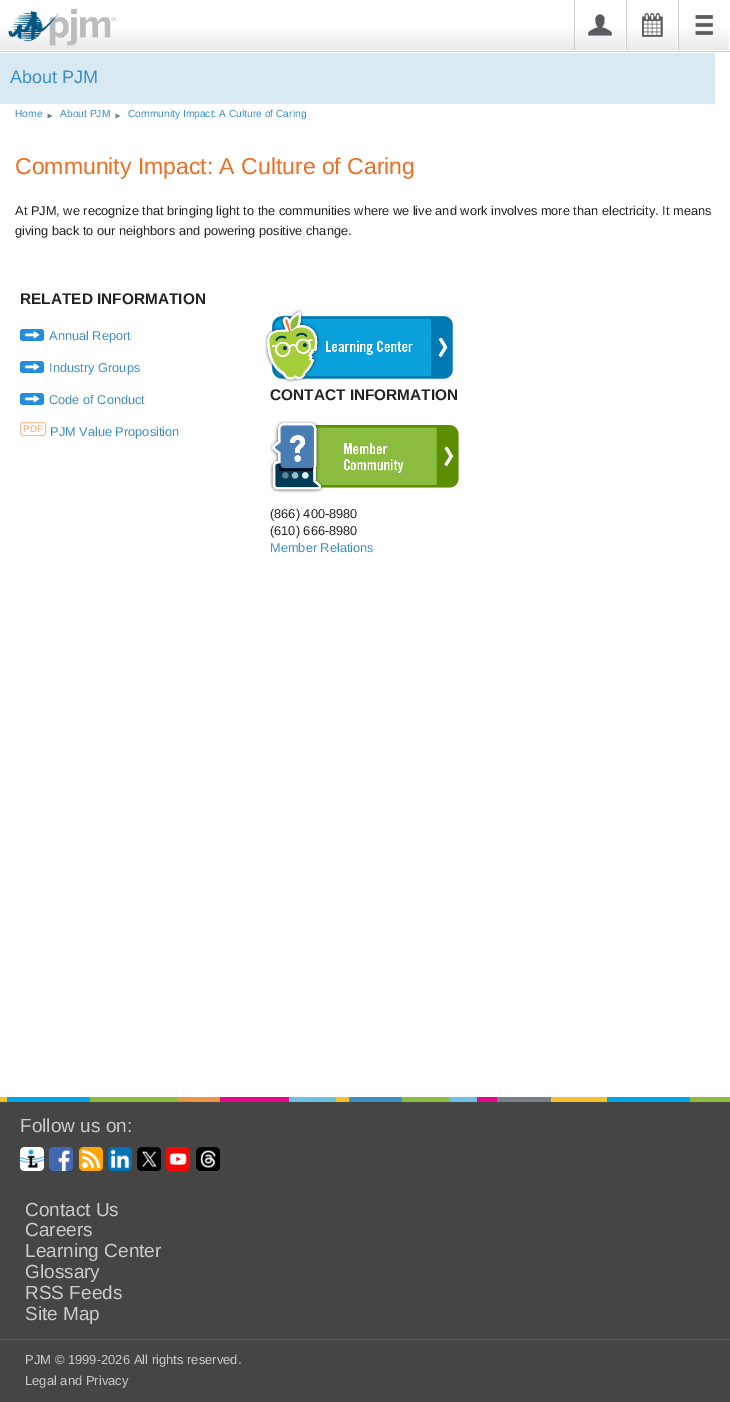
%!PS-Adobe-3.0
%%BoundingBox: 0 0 730 1402
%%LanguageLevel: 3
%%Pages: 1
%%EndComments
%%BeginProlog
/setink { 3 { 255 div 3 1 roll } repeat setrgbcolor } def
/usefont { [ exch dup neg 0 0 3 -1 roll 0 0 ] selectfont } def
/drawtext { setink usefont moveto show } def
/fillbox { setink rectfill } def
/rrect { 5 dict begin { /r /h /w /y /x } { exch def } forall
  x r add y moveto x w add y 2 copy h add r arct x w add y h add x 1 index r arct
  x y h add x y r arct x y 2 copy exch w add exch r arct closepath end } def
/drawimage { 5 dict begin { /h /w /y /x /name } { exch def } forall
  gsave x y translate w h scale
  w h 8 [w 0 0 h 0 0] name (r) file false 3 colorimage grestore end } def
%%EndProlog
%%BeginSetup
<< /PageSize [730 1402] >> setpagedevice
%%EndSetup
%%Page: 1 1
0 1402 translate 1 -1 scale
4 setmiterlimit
0 0 730 1402 255 255 255 fillbox
0 51 730 1 204 204 204 fillbox
gsave 0 28 moveto 729 28 lineto 729 50 lineto 0 50 lineto closepath clip newpath
<< /ShadingType 2 /ColorSpace /DeviceRGB /Coords [365 0 365 50] /Extend [true true] /Function << /FunctionType 3 /Domain [0 1] /Functions [<< /FunctionType 2 /Domain [0 1] /C0 [1 1 1] /C1 [1 1 1] /N 1 >> << /FunctionType 2 /Domain [0 1] /C0 [1 1 1] /C1 [0.918 0.914 0.914] /N 1 >>] /Bounds [0.5] /Encode [0 1 0 1] >> >> shfill grestore
625 28 1 22 255 255 255 fillbox
574 0 1 50 204 204 204 fillbox
(assets/img1.rgb) 588 14 24 22 drawimage
677 28 1 22 255 255 255 fillbox
626 0 1 50 204 204 204 fillbox
(assets/img2.rgb) 642 13 21 24 drawimage
678 0 1 50 204 204 204 fillbox
(assets/img3.rgb) 694 15 19 22 drawimage
(assets/img4.rgb) 8 8 108 38 drawimage
0 53 715 51 217 233 242 fillbox
(About PJM) 10 83 /LiberationSans-Regular 18 61 142 199 drawtext
(Home) 15 117 /LiberationSans-Regular 10.25 61 142 199 drawtext
(assets/img5.rgb) 47 113 6 6 drawimage
(About PJM) 60 117 /LiberationSans-Regular 10.25 61 142 199 drawtext
(assets/img5.rgb) 115 113 6 6 drawimage
(Community Impact: A Culture of Caring) 128 117 /LiberationSans-Regular 10.25 61 142 199 drawtext
(Community Impact: A Culture of Caring) 15 174 /LiberationSans-Regular 23 235 110 35 drawtext
(At PJM, we recognize that bringing light to the communities where we live and work involves more than electricity. It means) 15 215 /LiberationSans-Regular 12.8 34 34 34 drawtext
(giving back to our neighbors and powering positive change.) 15 235 /LiberationSans-Regular 12.8 34 34 34 drawtext
(RELATED INFORMATION) 20 304 /LiberationSans-Bold 15.4 34 34 34 drawtext
36 141 219 setink
20 329 24 12 3 rrect fill
(assets/img6.rgb) 25 331 15 8 drawimage
(Annual Report) 49 340 /LiberationSans-Regular 12.8 61 142 199 drawtext
36 141 219 setink
20 361 24 12 3 rrect fill
(assets/img6.rgb) 25 363 15 8 drawimage
(Industry Groups) 49 372 /LiberationSans-Regular 12.8 61 142 199 drawtext
36 141 219 setink
20 393 24 12 3 rrect fill
(assets/img6.rgb) 25 395 15 8 drawimage
(Code of Conduct) 49 404 /LiberationSans-Regular 12.8 61 142 199 drawtext
248 192 154 setink
20.5 422.5 25 13 2.5 rrect stroke
(PDF) 23 432 /LiberationSans-Bold 10 248 192 154 drawtext
(PJM Value Proposition) 50 436 /LiberationSans-Regular 12.8 61 142 199 drawtext
(assets/img7.rgb) 265 309 188 74 drawimage
(CONTACT INFORMATION) 270 400 /LiberationSans-Bold 15.4 34 34 34 drawtext
(assets/img8.rgb) 270 421 189 72 drawimage
(\(866\) 400-8980) 270 518 /LiberationSans-Regular 12.8 34 34 34 drawtext
(\(610\) 666-8980) 270 535 /LiberationSans-Regular 12.8 34 34 34 drawtext
(Member Relations) 270 552 /LiberationSans-Regular 12.8 61 142 199 drawtext
0 1102 730 300 69 69 69 fillbox
(assets/img9.rgb) 0 1097 730 5 drawimage
(Follow us on:) 20 1132 /LiberationSans-Regular 19 204 204 204 drawtext
(assets/img10.rgb) 20 1147 24 24 drawimage
(assets/img11.rgb) 49 1147 24 24 drawimage
(assets/img12.rgb) 79 1147 24 24 drawimage
(assets/img13.rgb) 108 1147 24 24 drawimage
(assets/img14.rgb) 137 1147 24 24 drawimage
(assets/img15.rgb) 166 1147 24 24 drawimage
(assets/img16.rgb) 196 1147 24 24 drawimage
(Contact Us) 25 1216 /LiberationSans-Regular 19 204 204 204 drawtext
(Careers) 25 1236 /LiberationSans-Regular 19 204 204 204 drawtext
(Learning Center) 25 1257 /LiberationSans-Regular 19 204 204 204 drawtext
(Glossary) 25 1278 /LiberationSans-Regular 19 204 204 204 drawtext
(RSS Feeds) 25 1299 /LiberationSans-Regular 19 204 204 204 drawtext
(Site Map) 25 1320 /LiberationSans-Regular 19 204 204 204 drawtext
102 102 102 setink
[1 1] 0 setdash
0 1339.5 moveto 730 1339.5 lineto stroke
(PJM © 1999-2026 All rights reserved.) 25 1364 /LiberationSans-Regular 13 204 204 204 drawtext
(Legal and Privacy) 25 1385 /LiberationSans-Regular 13 204 204 204 drawtext
showpage
%%EOF
